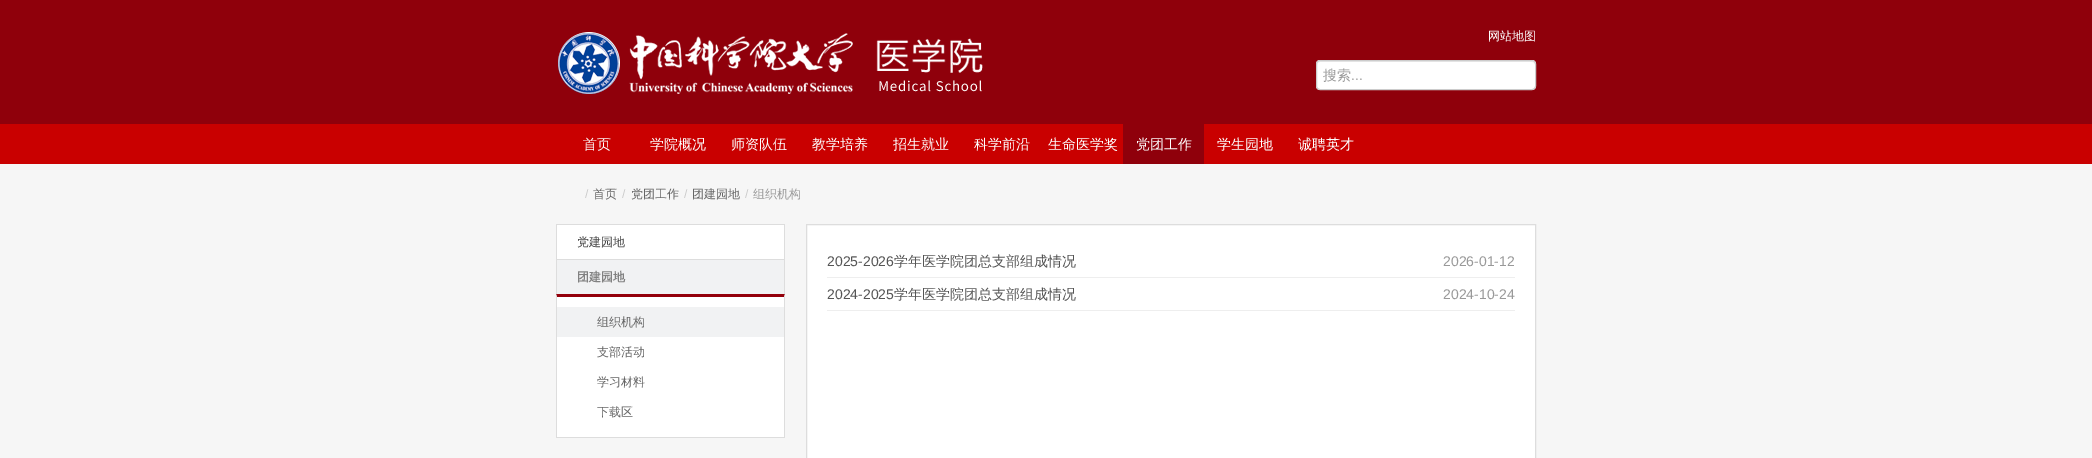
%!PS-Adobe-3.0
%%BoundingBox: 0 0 2092 458
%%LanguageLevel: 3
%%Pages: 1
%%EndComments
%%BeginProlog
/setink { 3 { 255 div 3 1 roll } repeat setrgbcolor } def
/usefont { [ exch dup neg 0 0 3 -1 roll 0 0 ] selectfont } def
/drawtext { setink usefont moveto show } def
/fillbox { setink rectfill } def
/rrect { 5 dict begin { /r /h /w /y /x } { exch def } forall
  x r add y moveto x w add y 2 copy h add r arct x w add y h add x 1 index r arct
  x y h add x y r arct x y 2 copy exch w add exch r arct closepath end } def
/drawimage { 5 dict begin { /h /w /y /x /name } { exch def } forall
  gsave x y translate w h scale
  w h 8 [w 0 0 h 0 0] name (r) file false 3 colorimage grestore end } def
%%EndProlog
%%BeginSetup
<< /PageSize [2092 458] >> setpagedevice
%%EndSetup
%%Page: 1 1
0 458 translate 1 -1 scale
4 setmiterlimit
0 0 2092 458 246 246 246 fillbox
0 0 2092 124 143 0 11 fillbox
(assets/img1.rgb) 558 32 295 62 drawimage
(assets/img2.rgb) 876 38 107 54 drawimage
255 255 255 setink
1316 60 220 30 4 rrect fill
236 236 236 setink
1320 62 moveto 1532 62 lineto 1534 62 1535 63 1535 65 curveto 1535 64 lineto 1535 62 1534 61 1532 61 curveto 1320 61 lineto 1318 61 1317 62 1317 64 curveto 1317 65 lineto 1317 63 1318 62 1320 62 curveto closepath fill
204 204 204 setink
1316.5 60.5 219 29 3.5 rrect stroke
(搜索) 1323 80 /WenQuanYiZenHei-Medium 14 153 153 153 drawtext
(...) 1351 80 /LiberationSans-Regular 14 153 153 153 drawtext
(网站地图) 1488 40 /WenQuanYiZenHei-Medium 12 255 255 255 drawtext
0 124 2092 40 201 0 0 fillbox
(首页) 583 149 /WenQuanYiZenHei-Medium 14 255 255 255 drawtext
(学院概况) 650 149 /WenQuanYiZenHei-Medium 14 255 255 255 drawtext
(师资队伍) 731 149 /WenQuanYiZenHei-Medium 14 255 255 255 drawtext
(教学培养) 812 149 /WenQuanYiZenHei-Medium 14 255 255 255 drawtext
(招生就业) 893 149 /WenQuanYiZenHei-Medium 14 255 255 255 drawtext
(科学前沿) 974 149 /WenQuanYiZenHei-Medium 14 255 255 255 drawtext
(生命医学奖) 1048 149 /WenQuanYiZenHei-Medium 14 255 255 255 drawtext
1123 124 81 40 143 0 11 fillbox
(党团工作) 1136 149 /WenQuanYiZenHei-Medium 14 255 255 255 drawtext
(学生园地) 1217 149 /WenQuanYiZenHei-Medium 14 255 255 255 drawtext
(诚聘英才) 1298 149 /WenQuanYiZenHei-Medium 14 255 255 255 drawtext
(/) 585 198 /LiberationSans-Regular 12 204 204 204 drawtext
(首页) 593 198 /WenQuanYiZenHei-Medium 12 102 102 102 drawtext
(/) 622 198 /LiberationSans-Regular 12 204 204 204 drawtext
(党团工作) 631 198 /WenQuanYiZenHei-Medium 12 102 102 102 drawtext
(/) 684 198 /LiberationSans-Regular 12 204 204 204 drawtext
(团建园地) 692 198 /WenQuanYiZenHei-Medium 12 102 102 102 drawtext
(/) 745 198 /LiberationSans-Regular 12 204 204 204 drawtext
(组织机构) 753 198 /WenQuanYiZenHei-Medium 12 153 153 153 drawtext
556 437 229 1 221 221 221 fillbox
557 225 227 34 255 255 255 fillbox
556 224 229 1 221 221 221 fillbox
784 224 1 35 221 221 221 fillbox
556 224 1 35 221 221 221 fillbox
(党建园地) 577 246 /WenQuanYiZenHei-Medium 12 68 68 68 drawtext
557 260 227 34 241 242 243 fillbox
556 259 229 1 221 221 221 fillbox
784 259 1 35 221 221 221 fillbox
556 259 1 35 221 221 221 fillbox
(团建园地) 577 281 /WenQuanYiZenHei-Bold 12 129 129 129 drawtext
556 294 229 143 255 255 255 fillbox
147 0 11 setink
556 294 moveto 785 294 lineto 784 297 lineto 557 297 lineto closepath fill
221 221 221 setink
785 294 moveto 785 437 lineto 784 437 lineto 784 297 lineto closepath fill
556 437 moveto 556 294 lineto 557 297 lineto 557 437 lineto closepath fill
557 307 227 30 241 242 243 fillbox
(组织机构) 597 326 /WenQuanYiZenHei-Medium 12 102 102 102 drawtext
(支部活动) 597 356 /WenQuanYiZenHei-Medium 12 102 102 102 drawtext
(学习材料) 597 386 /WenQuanYiZenHei-Medium 12 102 102 102 drawtext
(下载区) 597 416 /WenQuanYiZenHei-Medium 12 102 102 102 drawtext
255 255 255 setink
806.5 224.5 moveto 1535.5 224.5 lineto 1535.5 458.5 lineto 806.5 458.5 lineto closepath gsave fill grestore
221 221 221 setink
stroke
827 277 688 1 238 238 238 fillbox
(2025-2026) 827 266 /LiberationSans-Regular 14 85 85 85 drawtext
(学年医学院团总支部组成情况) 894 266 /WenQuanYiZenHei-Medium 14 85 85 85 drawtext
(2026-01-12) 1443 266 /LiberationSans-Regular 14 153 153 153 drawtext
827 310 688 1 238 238 238 fillbox
(2024-2025) 827 299 /LiberationSans-Regular 14 85 85 85 drawtext
(学年医学院团总支部组成情况) 894 299 /WenQuanYiZenHei-Medium 14 85 85 85 drawtext
(2024-10-24) 1443 299 /LiberationSans-Regular 14 153 153 153 drawtext
showpage
%%EOF
